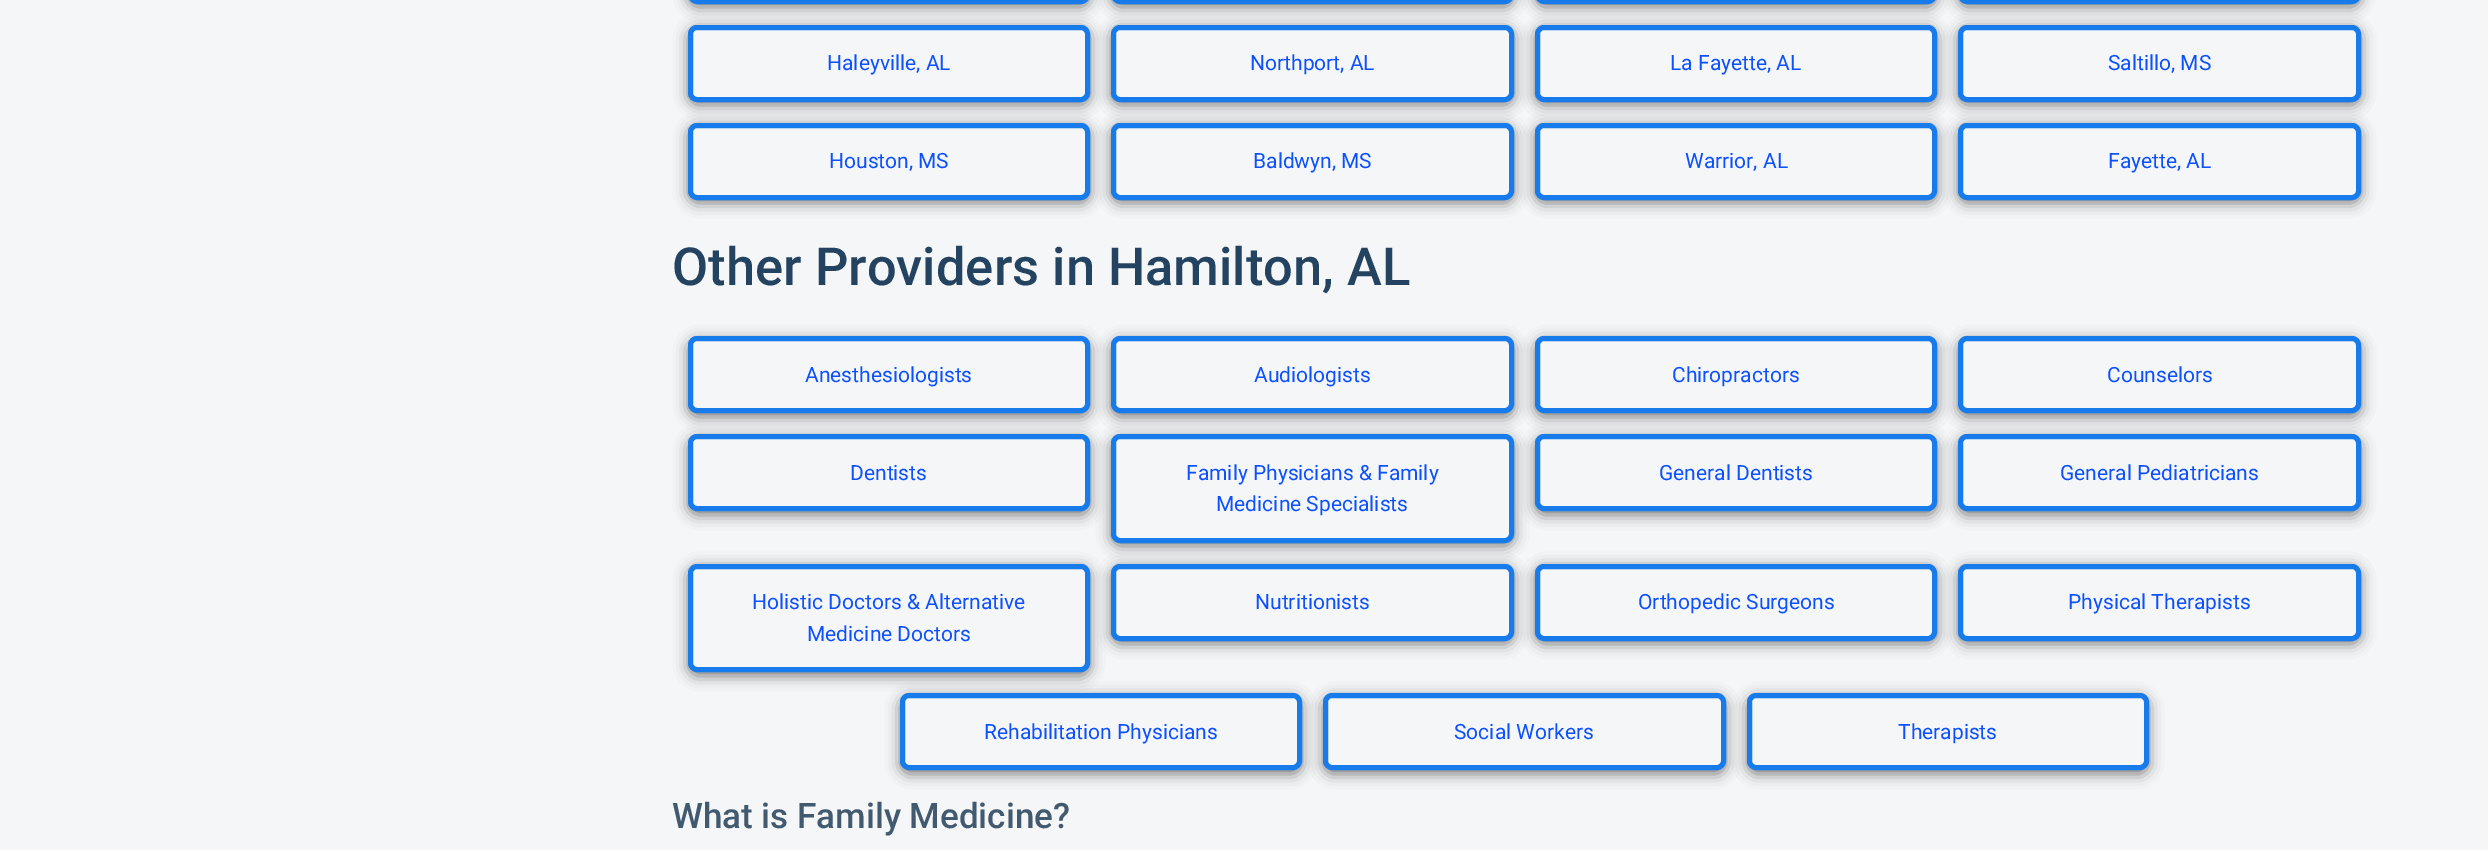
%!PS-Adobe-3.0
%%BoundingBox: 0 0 2488 850
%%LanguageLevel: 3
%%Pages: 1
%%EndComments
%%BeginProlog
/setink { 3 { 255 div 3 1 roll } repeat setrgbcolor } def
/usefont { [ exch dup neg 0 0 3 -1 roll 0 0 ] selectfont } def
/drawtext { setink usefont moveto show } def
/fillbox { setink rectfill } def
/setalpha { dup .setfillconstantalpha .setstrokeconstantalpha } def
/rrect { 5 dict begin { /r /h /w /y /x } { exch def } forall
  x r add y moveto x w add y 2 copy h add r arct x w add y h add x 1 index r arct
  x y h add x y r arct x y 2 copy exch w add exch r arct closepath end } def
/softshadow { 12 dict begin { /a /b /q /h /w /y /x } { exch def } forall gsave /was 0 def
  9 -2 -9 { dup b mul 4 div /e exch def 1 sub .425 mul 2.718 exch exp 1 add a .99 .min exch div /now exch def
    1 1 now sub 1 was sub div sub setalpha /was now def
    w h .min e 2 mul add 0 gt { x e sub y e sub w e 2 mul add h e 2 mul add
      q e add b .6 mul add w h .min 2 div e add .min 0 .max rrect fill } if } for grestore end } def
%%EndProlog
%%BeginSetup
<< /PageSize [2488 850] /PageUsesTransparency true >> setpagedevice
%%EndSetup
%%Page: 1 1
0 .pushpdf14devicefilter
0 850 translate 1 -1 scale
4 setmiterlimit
0 0 2488 850 245 246 247 fillbox
0 0 0 setink
688 -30 402 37 9 7 0.5 softshadow
23 123 236 setink
5 setlinewidth
690.5 -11.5 397 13 6.5 rrect stroke
0 0 0 setink
1111 -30 403 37 9 7 0.5 softshadow
23 123 236 setink
1113.5 -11.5 398 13 6.5 rrect stroke
0 0 0 setink
1535 -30 402 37 9 7 0.5 softshadow
23 123 236 setink
1537.5 -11.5 397 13 6.5 rrect stroke
0 0 0 setink
1958 -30 403 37 9 7 0.5 softshadow
23 123 236 setink
1960.5 -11.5 398 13 6.5 rrect stroke
gsave
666 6 moveto 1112 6 lineto 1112 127 lineto 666 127 lineto closepath 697 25 moveto 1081 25 lineto 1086 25 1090 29 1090 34 curveto 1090 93 lineto 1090 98 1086 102 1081 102 curveto 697 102 lineto 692 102 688 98 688 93 curveto 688 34 lineto 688 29 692 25 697 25 curveto closepath eoclip newpath
0 0 0 setink
688 28 402 77 9 7 0.5 softshadow
grestore
690.5 27.5 397 72 6.5 rrect stroke
(Haleyville, AL) 827 70 /Roboto-Regular 21 12 80 255 drawtext
gsave
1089 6 moveto 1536 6 lineto 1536 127 lineto 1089 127 lineto closepath 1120 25 moveto 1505 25 lineto 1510 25 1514 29 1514 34 curveto 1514 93 lineto 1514 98 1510 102 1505 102 curveto 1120 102 lineto 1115 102 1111 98 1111 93 curveto 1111 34 lineto 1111 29 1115 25 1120 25 curveto closepath eoclip newpath
0 0 0 setink
1111 28 403 77 9 7 0.5 softshadow
grestore
23 123 236 setink
1113.5 27.5 398 72 6.5 rrect stroke
(Northport, AL) 1250 70 /Roboto-Regular 21 12 80 255 drawtext
gsave
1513 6 moveto 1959 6 lineto 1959 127 lineto 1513 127 lineto closepath 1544 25 moveto 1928 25 lineto 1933 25 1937 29 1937 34 curveto 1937 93 lineto 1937 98 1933 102 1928 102 curveto 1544 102 lineto 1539 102 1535 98 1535 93 curveto 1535 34 lineto 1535 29 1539 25 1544 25 curveto closepath eoclip newpath
0 0 0 setink
1535 28 402 77 9 7 0.5 softshadow
grestore
23 123 236 setink
1537.5 27.5 397 72 6.5 rrect stroke
(La Fayette, AL) 1670 70 /Roboto-Regular 21 12 80 255 drawtext
gsave
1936 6 moveto 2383 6 lineto 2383 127 lineto 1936 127 lineto closepath 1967 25 moveto 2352 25 lineto 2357 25 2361 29 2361 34 curveto 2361 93 lineto 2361 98 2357 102 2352 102 curveto 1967 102 lineto 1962 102 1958 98 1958 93 curveto 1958 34 lineto 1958 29 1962 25 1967 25 curveto closepath eoclip newpath
0 0 0 setink
1958 28 403 77 9 7 0.5 softshadow
grestore
23 123 236 setink
1960.5 27.5 398 72 6.5 rrect stroke
(Saltillo, MS) 2108 70 /Roboto-Regular 21 12 80 255 drawtext
gsave
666 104 moveto 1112 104 lineto 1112 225 lineto 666 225 lineto closepath 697 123 moveto 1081 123 lineto 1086 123 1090 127 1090 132 curveto 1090 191 lineto 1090 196 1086 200 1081 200 curveto 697 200 lineto 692 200 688 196 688 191 curveto 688 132 lineto 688 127 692 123 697 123 curveto closepath eoclip newpath
0 0 0 setink
688 126 402 77 9 7 0.5 softshadow
grestore
23 123 236 setink
690.5 125.5 397 72 6.5 rrect stroke
(Houston, MS) 829 168 /Roboto-Regular 21 12 80 255 drawtext
gsave
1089 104 moveto 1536 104 lineto 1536 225 lineto 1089 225 lineto closepath 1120 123 moveto 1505 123 lineto 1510 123 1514 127 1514 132 curveto 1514 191 lineto 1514 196 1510 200 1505 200 curveto 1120 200 lineto 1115 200 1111 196 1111 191 curveto 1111 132 lineto 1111 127 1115 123 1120 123 curveto closepath eoclip newpath
0 0 0 setink
1111 126 403 77 9 7 0.5 softshadow
grestore
23 123 236 setink
1113.5 125.5 398 72 6.5 rrect stroke
(Baldwyn, MS) 1253 168 /Roboto-Regular 21 12 80 255 drawtext
gsave
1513 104 moveto 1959 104 lineto 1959 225 lineto 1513 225 lineto closepath 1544 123 moveto 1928 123 lineto 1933 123 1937 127 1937 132 curveto 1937 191 lineto 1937 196 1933 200 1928 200 curveto 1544 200 lineto 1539 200 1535 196 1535 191 curveto 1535 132 lineto 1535 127 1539 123 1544 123 curveto closepath eoclip newpath
0 0 0 setink
1535 126 402 77 9 7 0.5 softshadow
grestore
23 123 236 setink
1537.5 125.5 397 72 6.5 rrect stroke
(Warrior, AL) 1685 168 /Roboto-Regular 21 12 80 255 drawtext
gsave
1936 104 moveto 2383 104 lineto 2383 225 lineto 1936 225 lineto closepath 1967 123 moveto 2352 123 lineto 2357 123 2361 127 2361 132 curveto 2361 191 lineto 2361 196 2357 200 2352 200 curveto 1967 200 lineto 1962 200 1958 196 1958 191 curveto 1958 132 lineto 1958 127 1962 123 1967 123 curveto closepath eoclip newpath
0 0 0 setink
1958 126 403 77 9 7 0.5 softshadow
grestore
23 123 236 setink
1960.5 125.5 398 72 6.5 rrect stroke
(Fayette, AL) 2108 168 /Roboto-Regular 21 12 80 255 drawtext
(Other Providers in Hamilton, AL) 672 285 /Roboto-Medium 52.5 35 67 97 drawtext
gsave
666 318 moveto 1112 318 lineto 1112 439 lineto 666 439 lineto closepath 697 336 moveto 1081 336 lineto 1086 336 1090 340 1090 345 curveto 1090 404 lineto 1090 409 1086 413 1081 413 curveto 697 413 lineto 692 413 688 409 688 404 curveto 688 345 lineto 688 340 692 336 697 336 curveto closepath eoclip newpath
0 0 0 setink
688 340 402 77 9 7 0.5 softshadow
grestore
23 123 236 setink
690.5 338.5 397 72 6.5 rrect stroke
(Anesthesiologists) 805 382 /Roboto-Regular 21 12 80 255 drawtext
gsave
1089 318 moveto 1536 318 lineto 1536 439 lineto 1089 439 lineto closepath 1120 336 moveto 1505 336 lineto 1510 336 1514 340 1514 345 curveto 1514 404 lineto 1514 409 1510 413 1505 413 curveto 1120 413 lineto 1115 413 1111 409 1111 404 curveto 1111 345 lineto 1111 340 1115 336 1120 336 curveto closepath eoclip newpath
0 0 0 setink
1111 340 403 77 9 7 0.5 softshadow
grestore
23 123 236 setink
1113.5 338.5 398 72 6.5 rrect stroke
(Audiologists) 1254 382 /Roboto-Regular 21 12 80 255 drawtext
gsave
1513 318 moveto 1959 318 lineto 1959 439 lineto 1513 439 lineto closepath 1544 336 moveto 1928 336 lineto 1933 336 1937 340 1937 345 curveto 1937 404 lineto 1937 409 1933 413 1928 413 curveto 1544 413 lineto 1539 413 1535 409 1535 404 curveto 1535 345 lineto 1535 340 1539 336 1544 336 curveto closepath eoclip newpath
0 0 0 setink
1535 340 402 77 9 7 0.5 softshadow
grestore
23 123 236 setink
1537.5 338.5 397 72 6.5 rrect stroke
(Chiropractors) 1672 382 /Roboto-Regular 21 12 80 255 drawtext
gsave
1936 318 moveto 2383 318 lineto 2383 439 lineto 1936 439 lineto closepath 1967 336 moveto 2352 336 lineto 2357 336 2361 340 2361 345 curveto 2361 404 lineto 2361 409 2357 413 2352 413 curveto 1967 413 lineto 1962 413 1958 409 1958 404 curveto 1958 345 lineto 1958 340 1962 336 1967 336 curveto closepath eoclip newpath
0 0 0 setink
1958 340 403 77 9 7 0.5 softshadow
grestore
23 123 236 setink
1960.5 338.5 398 72 6.5 rrect stroke
(Counselors) 2107 382 /Roboto-Regular 21 12 80 255 drawtext
gsave
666 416 moveto 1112 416 lineto 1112 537 lineto 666 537 lineto closepath 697 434 moveto 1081 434 lineto 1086 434 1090 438 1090 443 curveto 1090 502 lineto 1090 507 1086 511 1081 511 curveto 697 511 lineto 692 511 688 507 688 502 curveto 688 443 lineto 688 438 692 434 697 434 curveto closepath eoclip newpath
0 0 0 setink
688 438 402 77 9 7 0.5 softshadow
grestore
23 123 236 setink
690.5 436.5 397 72 6.5 rrect stroke
(Dentists) 850 480 /Roboto-Regular 21 12 80 255 drawtext
gsave
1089 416 moveto 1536 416 lineto 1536 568 lineto 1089 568 lineto closepath 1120 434 moveto 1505 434 lineto 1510 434 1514 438 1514 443 curveto 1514 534 lineto 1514 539 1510 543 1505 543 curveto 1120 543 lineto 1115 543 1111 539 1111 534 curveto 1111 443 lineto 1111 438 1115 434 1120 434 curveto closepath eoclip newpath
0 0 0 setink
1111 438 403 108 9 7 0.5 softshadow
grestore
23 123 236 setink
1113.5 436.5 398 104 6.5 rrect stroke
(Family Physicians & Family) 1186 480 /Roboto-Regular 21 12 80 255 drawtext
(Medicine Specialists) 1216 511 /Roboto-Regular 21 12 80 255 drawtext
gsave
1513 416 moveto 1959 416 lineto 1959 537 lineto 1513 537 lineto closepath 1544 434 moveto 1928 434 lineto 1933 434 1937 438 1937 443 curveto 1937 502 lineto 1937 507 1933 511 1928 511 curveto 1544 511 lineto 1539 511 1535 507 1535 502 curveto 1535 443 lineto 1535 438 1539 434 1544 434 curveto closepath eoclip newpath
0 0 0 setink
1535 438 402 77 9 7 0.5 softshadow
grestore
23 123 236 setink
1537.5 436.5 397 72 6.5 rrect stroke
(General Dentists) 1659 480 /Roboto-Regular 21 12 80 255 drawtext
gsave
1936 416 moveto 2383 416 lineto 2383 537 lineto 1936 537 lineto closepath 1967 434 moveto 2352 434 lineto 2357 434 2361 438 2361 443 curveto 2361 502 lineto 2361 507 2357 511 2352 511 curveto 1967 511 lineto 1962 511 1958 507 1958 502 curveto 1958 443 lineto 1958 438 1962 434 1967 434 curveto closepath eoclip newpath
0 0 0 setink
1958 438 403 77 9 7 0.5 softshadow
grestore
23 123 236 setink
1960.5 436.5 398 72 6.5 rrect stroke
(General Pediatricians) 2060 480 /Roboto-Regular 21 12 80 255 drawtext
gsave
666 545 moveto 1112 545 lineto 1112 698 lineto 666 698 lineto closepath 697 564 moveto 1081 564 lineto 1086 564 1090 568 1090 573 curveto 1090 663 lineto 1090 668 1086 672 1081 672 curveto 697 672 lineto 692 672 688 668 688 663 curveto 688 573 lineto 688 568 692 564 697 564 curveto closepath eoclip newpath
0 0 0 setink
688 567 402 109 9 7 0.5 softshadow
grestore
23 123 236 setink
690.5 566.5 397 103 6.5 rrect stroke
(Holistic Doctors & Alternative) 752 609 /Roboto-Regular 21 12 80 255 drawtext
(Medicine Doctors) 807 641 /Roboto-Regular 21 12 80 255 drawtext
gsave
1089 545 moveto 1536 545 lineto 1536 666 lineto 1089 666 lineto closepath 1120 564 moveto 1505 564 lineto 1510 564 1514 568 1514 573 curveto 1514 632 lineto 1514 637 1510 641 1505 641 curveto 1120 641 lineto 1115 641 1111 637 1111 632 curveto 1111 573 lineto 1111 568 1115 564 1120 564 curveto closepath eoclip newpath
0 0 0 setink
1111 567 403 77 9 7 0.5 softshadow
grestore
23 123 236 setink
1113.5 566.5 398 72 6.5 rrect stroke
(Nutritionists) 1255 609 /Roboto-Regular 21 12 80 255 drawtext
gsave
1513 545 moveto 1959 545 lineto 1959 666 lineto 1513 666 lineto closepath 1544 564 moveto 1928 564 lineto 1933 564 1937 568 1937 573 curveto 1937 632 lineto 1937 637 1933 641 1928 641 curveto 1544 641 lineto 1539 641 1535 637 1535 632 curveto 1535 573 lineto 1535 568 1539 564 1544 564 curveto closepath eoclip newpath
0 0 0 setink
1535 567 402 77 9 7 0.5 softshadow
grestore
23 123 236 setink
1537.5 566.5 397 72 6.5 rrect stroke
(Orthopedic Surgeons) 1638 609 /Roboto-Regular 21 12 80 255 drawtext
gsave
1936 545 moveto 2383 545 lineto 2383 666 lineto 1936 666 lineto closepath 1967 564 moveto 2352 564 lineto 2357 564 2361 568 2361 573 curveto 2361 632 lineto 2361 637 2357 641 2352 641 curveto 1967 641 lineto 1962 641 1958 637 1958 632 curveto 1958 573 lineto 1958 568 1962 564 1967 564 curveto closepath eoclip newpath
0 0 0 setink
1958 567 403 77 9 7 0.5 softshadow
grestore
23 123 236 setink
1960.5 566.5 398 72 6.5 rrect stroke
(Physical Therapists) 2068 609 /Roboto-Regular 21 12 80 255 drawtext
gsave
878 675 moveto 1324 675 lineto 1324 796 lineto 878 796 lineto closepath 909 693 moveto 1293 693 lineto 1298 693 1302 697 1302 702 curveto 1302 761 lineto 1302 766 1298 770 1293 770 curveto 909 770 lineto 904 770 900 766 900 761 curveto 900 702 lineto 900 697 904 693 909 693 curveto closepath eoclip newpath
0 0 0 setink
900 697 402 77 9 7 0.5 softshadow
grestore
23 123 236 setink
902.5 695.5 397 72 6.5 rrect stroke
(Rehabilitation Physicians) 984 739 /Roboto-Regular 21 12 80 255 drawtext
gsave
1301 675 moveto 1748 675 lineto 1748 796 lineto 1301 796 lineto closepath 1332 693 moveto 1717 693 lineto 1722 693 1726 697 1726 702 curveto 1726 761 lineto 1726 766 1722 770 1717 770 curveto 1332 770 lineto 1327 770 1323 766 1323 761 curveto 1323 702 lineto 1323 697 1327 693 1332 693 curveto closepath eoclip newpath
0 0 0 setink
1323 697 403 77 9 7 0.5 softshadow
grestore
23 123 236 setink
1325.5 695.5 398 72 6.5 rrect stroke
(Social Workers) 1454 739 /Roboto-Regular 21 12 80 255 drawtext
gsave
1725 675 moveto 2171 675 lineto 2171 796 lineto 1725 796 lineto closepath 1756 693 moveto 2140 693 lineto 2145 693 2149 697 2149 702 curveto 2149 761 lineto 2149 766 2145 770 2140 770 curveto 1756 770 lineto 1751 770 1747 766 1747 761 curveto 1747 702 lineto 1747 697 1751 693 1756 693 curveto closepath eoclip newpath
0 0 0 setink
1747 697 402 77 9 7 0.5 softshadow
grestore
23 123 236 setink
1749.5 695.5 397 72 6.5 rrect stroke
(Therapists) 1898 739 /Roboto-Regular 21 12 80 255 drawtext
(What is Family Medicine?) 672 828 /Roboto-Medium 35 66 90 112 drawtext
.poppdf14devicefilter showpage
%%EOF
